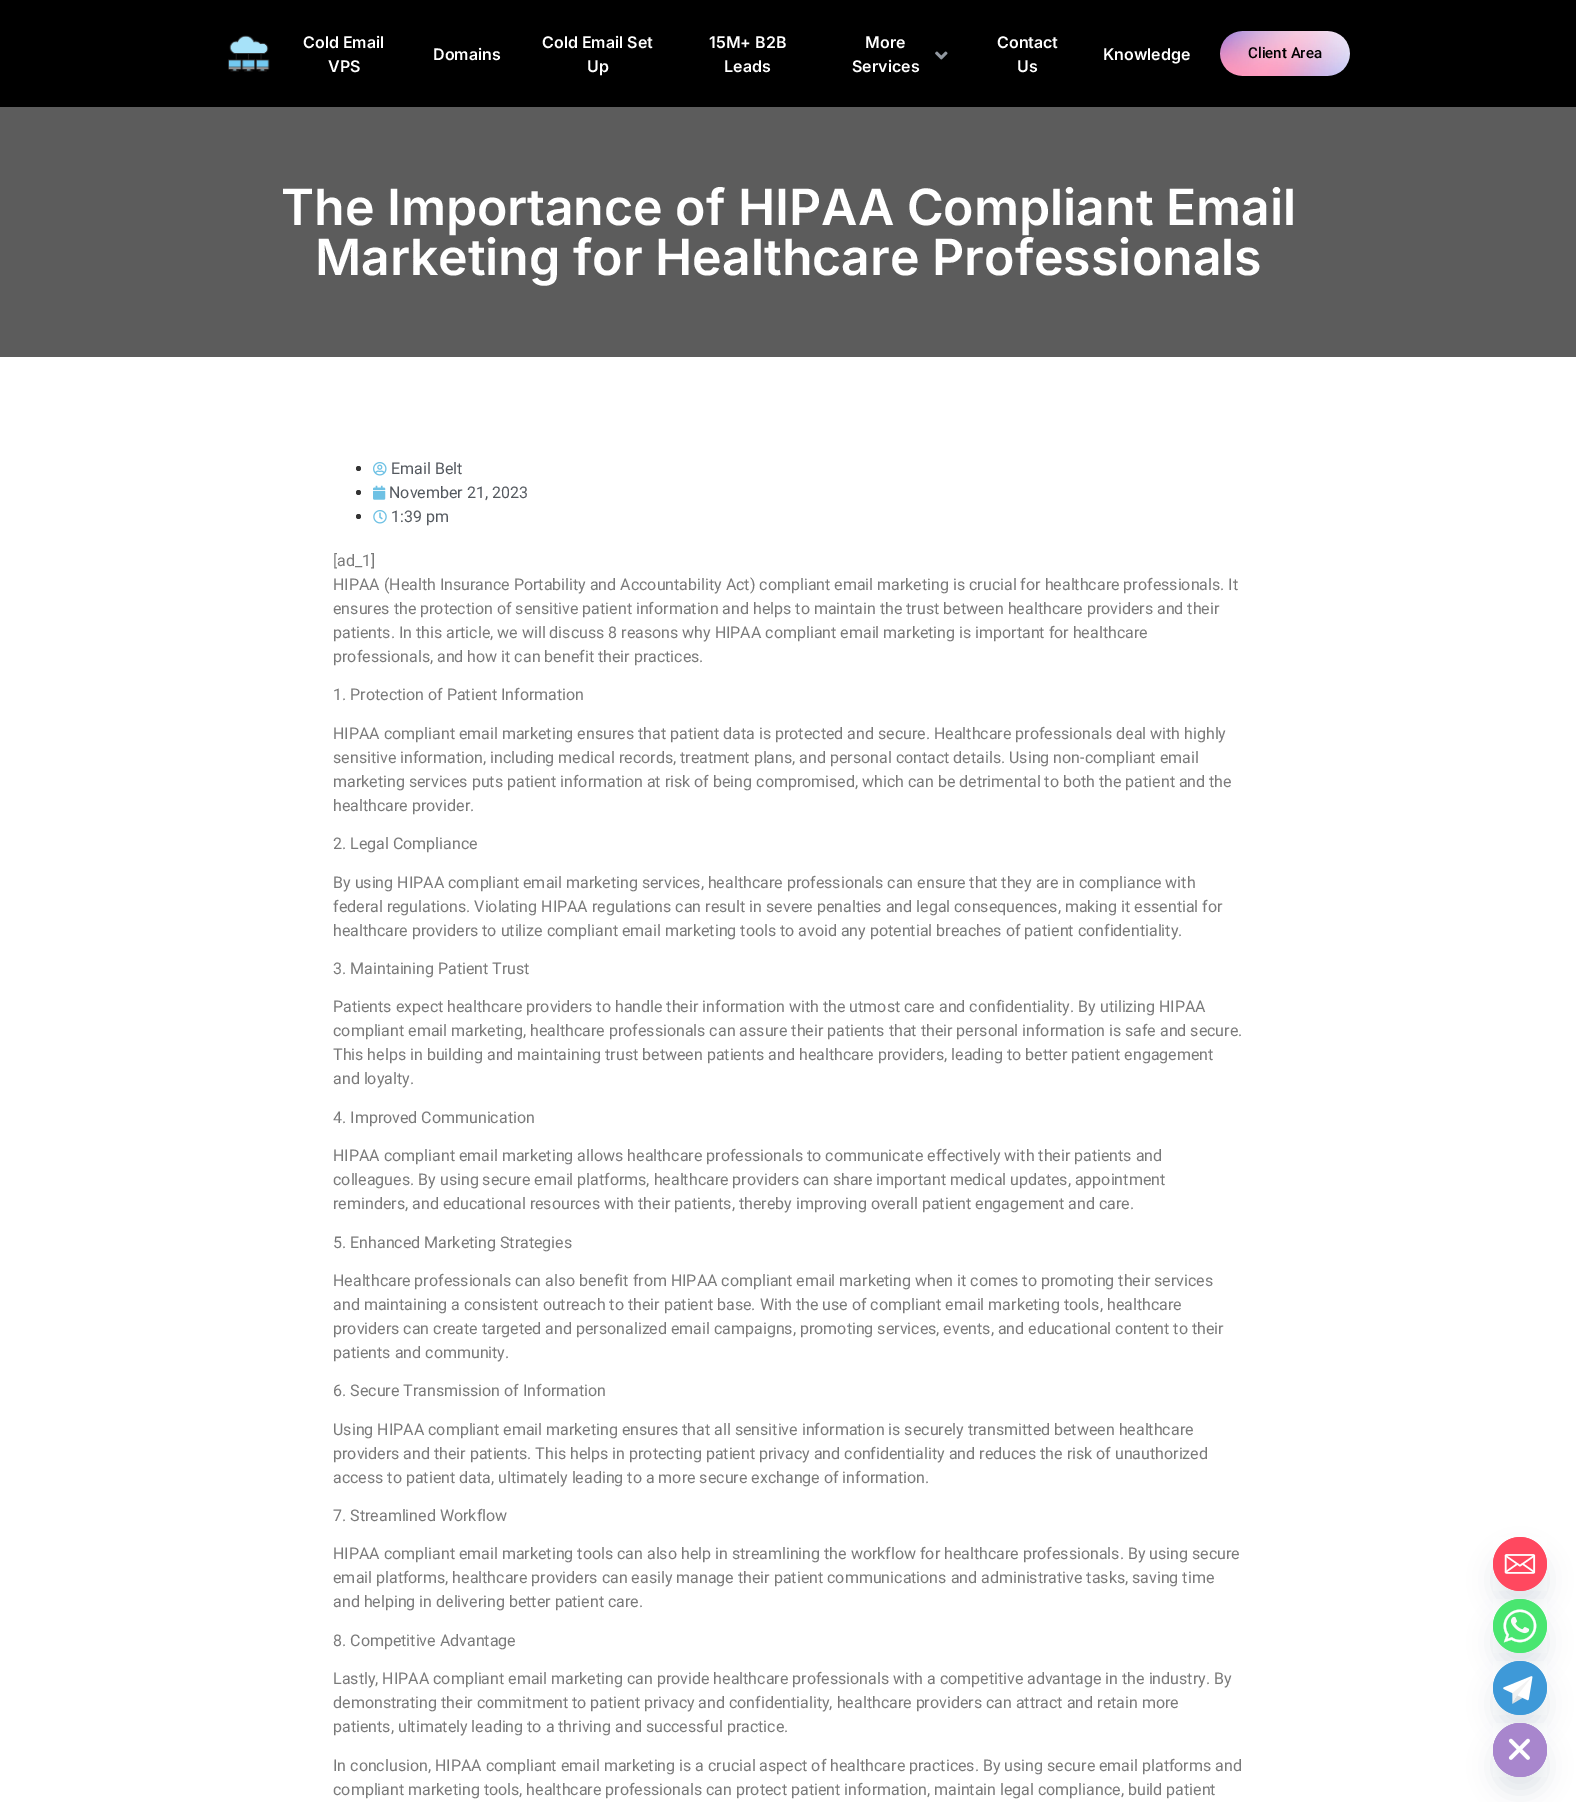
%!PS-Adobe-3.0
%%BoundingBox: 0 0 1576 1802
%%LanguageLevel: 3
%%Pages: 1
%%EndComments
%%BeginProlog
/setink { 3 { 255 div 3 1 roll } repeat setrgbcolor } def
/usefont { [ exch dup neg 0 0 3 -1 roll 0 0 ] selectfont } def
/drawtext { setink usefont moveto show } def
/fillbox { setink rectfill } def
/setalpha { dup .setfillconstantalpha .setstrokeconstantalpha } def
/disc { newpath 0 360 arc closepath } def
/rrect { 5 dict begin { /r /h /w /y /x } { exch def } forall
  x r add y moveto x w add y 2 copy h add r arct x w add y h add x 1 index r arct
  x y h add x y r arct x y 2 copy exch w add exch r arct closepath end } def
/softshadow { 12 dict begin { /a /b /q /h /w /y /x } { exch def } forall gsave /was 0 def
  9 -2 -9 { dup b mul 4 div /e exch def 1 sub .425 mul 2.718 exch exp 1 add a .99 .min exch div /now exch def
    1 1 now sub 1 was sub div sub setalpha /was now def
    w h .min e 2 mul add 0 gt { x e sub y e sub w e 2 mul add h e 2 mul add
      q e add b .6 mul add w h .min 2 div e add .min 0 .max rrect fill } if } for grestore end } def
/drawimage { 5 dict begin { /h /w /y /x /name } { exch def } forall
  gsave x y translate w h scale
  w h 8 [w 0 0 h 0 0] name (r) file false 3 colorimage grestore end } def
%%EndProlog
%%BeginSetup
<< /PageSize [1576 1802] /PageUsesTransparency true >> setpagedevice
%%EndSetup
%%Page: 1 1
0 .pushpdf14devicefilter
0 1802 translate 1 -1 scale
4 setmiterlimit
0 0 1576 1802 255 255 255 fillbox
0 0 1576 107 0 0 0 fillbox
(assets/img1.rgb) 228 35 42 37 drawimage
(Cold Email) 303 48 /Inter-SemiBold 16 255 255 255 drawtext
(VPS) 328 72 /Inter-SemiBold 16 255 255 255 drawtext
(Domains) 433 60 /Inter-SemiBold 16 255 255 255 drawtext
(Cold Email Set) 542 48 /Inter-SemiBold 16 255 255 255 drawtext
(Up) 587 72 /Inter-SemiBold 16 255 255 255 drawtext
(15M+ B2B) 709 48 /Inter-SemiBold 16 255 255 255 drawtext
(Leads) 724 72 /Inter-SemiBold 16 255 255 255 drawtext
(More) 865 48 /Inter-SemiBold 16 255 255 255 drawtext
(assets/img2.rgb) 935 51 13 9 drawimage
(Services) 852 72 /Inter-SemiBold 16 255 255 255 drawtext
(Contact) 997 48 /Inter-SemiBold 16 255 255 255 drawtext
(Us) 1017 72 /Inter-SemiBold 16 255 255 255 drawtext
(Knowledge) 1103 60 /Inter-SemiBold 16 255 255 255 drawtext
(assets/img3.rgb) 1220 31 130 45 drawimage
(Client Area) 1248 58 /Roboto-Medium 15 0 0 0 drawtext
0 107 1576 250 92 92 92 fillbox
(The Importance of HIPAA Compliant Email) 281 225 /Inter-SemiBold 50 255 255 255 drawtext
(Marketing for Healthcare Professionals) 315 275 /Inter-SemiBold 50 255 255 255 drawtext
51 51 51 setink
358.5 468.5 2.5 disc fill
(assets/img4.rgb) 373 462 14 14 drawimage
(Email Belt) 391 474 /Roboto-Regular 16 84 89 95 drawtext
51 51 51 setink
358.5 492.5 2.5 disc fill
(assets/img5.rgb) 373 485 13 15 drawimage
(November 21, 2023) 389 498 /Roboto-Regular 16 84 89 95 drawtext
51 51 51 setink
358.5 516.5 2.5 disc fill
(assets/img6.rgb) 373 510 14 14 drawimage
(1:39 pm) 391 522 /Roboto-Regular 16 84 89 95 drawtext
([ad_1]) 333 566 /Roboto-Regular 16 122 122 122 drawtext
(HIPAA \(Health Insurance Portability and Accountability Act\) compliant email marketing is crucial for healthcare professionals. It) 333 590 /Roboto-Regular 16 122 122 122 drawtext
(ensures the protection of sensitive patient information and helps to maintain the trust between healthcare providers and their) 333 614 /Roboto-Regular 16 122 122 122 drawtext
(patients. In this article, we will discuss 8 reasons why HIPAA compliant email marketing is important for healthcare) 333 638 /Roboto-Regular 16 122 122 122 drawtext
(professionals, and how it can benefit their practices.) 333 662 /Roboto-Regular 16 122 122 122 drawtext
(1. Protection of Patient Information) 333 700 /Roboto-Regular 16 122 122 122 drawtext
(HIPAA compliant email marketing ensures that patient data is protected and secure. Healthcare professionals deal with highly) 333 739 /Roboto-Regular 16 122 122 122 drawtext
(sensitive information, including medical records, treatment plans, and personal contact details. Using non-compliant email) 333 763 /Roboto-Regular 16 122 122 122 drawtext
(marketing services puts patient information at risk of being compromised, which can be detrimental to both the patient and the) 333 787 /Roboto-Regular 16 122 122 122 drawtext
(healthcare provider.) 333 811 /Roboto-Regular 16 122 122 122 drawtext
(2. Legal Compliance) 333 849 /Roboto-Regular 16 122 122 122 drawtext
(By using HIPAA compliant email marketing services, healthcare professionals can ensure that they are in compliance with) 333 888 /Roboto-Regular 16 122 122 122 drawtext
(federal regulations. Violating HIPAA regulations can result in severe penalties and legal consequences, making it essential for) 333 912 /Roboto-Regular 16 122 122 122 drawtext
(healthcare providers to utilize compliant email marketing tools to avoid any potential breaches of patient confidentiality.) 333 936 /Roboto-Regular 16 122 122 122 drawtext
(3. Maintaining Patient Trust) 333 974 /Roboto-Regular 16 122 122 122 drawtext
(Patients expect healthcare providers to handle their information with the utmost care and confidentiality. By utilizing HIPAA) 333 1012 /Roboto-Regular 16 122 122 122 drawtext
(compliant email marketing, healthcare professionals can assure their patients that their personal information is safe and secure.) 333 1036 /Roboto-Regular 16 122 122 122 drawtext
(This helps in building and maintaining trust between patients and healthcare providers, leading to better patient engagement) 333 1060 /Roboto-Regular 16 122 122 122 drawtext
(and loyalty.) 333 1084 /Roboto-Regular 16 122 122 122 drawtext
(4. Improved Communication) 333 1123 /Roboto-Regular 16 122 122 122 drawtext
(HIPAA compliant email marketing allows healthcare professionals to communicate effectively with their patients and) 333 1161 /Roboto-Regular 16 122 122 122 drawtext
(colleagues. By using secure email platforms, healthcare providers can share important medical updates, appointment) 333 1185 /Roboto-Regular 16 122 122 122 drawtext
(reminders, and educational resources with their patients, thereby improving overall patient engagement and care.) 333 1209 /Roboto-Regular 16 122 122 122 drawtext
(5. Enhanced Marketing Strategies) 333 1248 /Roboto-Regular 16 122 122 122 drawtext
(Healthcare professionals can also benefit from HIPAA compliant email marketing when it comes to promoting their services) 333 1286 /Roboto-Regular 16 122 122 122 drawtext
(and maintaining a consistent outreach to their patient base. With the use of compliant email marketing tools, healthcare) 333 1310 /Roboto-Regular 16 122 122 122 drawtext
(providers can create targeted and personalized email campaigns, promoting services, events, and educational content to their) 333 1334 /Roboto-Regular 16 122 122 122 drawtext
(patients and community.) 333 1358 /Roboto-Regular 16 122 122 122 drawtext
(6. Secure Transmission of Information) 333 1396 /Roboto-Regular 16 122 122 122 drawtext
(Using HIPAA compliant email marketing ensures that all sensitive information is securely transmitted between healthcare) 333 1435 /Roboto-Regular 16 122 122 122 drawtext
(providers and their patients. This helps in protecting patient privacy and confidentiality and reduces the risk of unauthorized) 333 1459 /Roboto-Regular 16 122 122 122 drawtext
(access to patient data, ultimately leading to a more secure exchange of information.) 333 1483 /Roboto-Regular 16 122 122 122 drawtext
(7. Streamlined Workflow) 333 1521 /Roboto-Regular 16 122 122 122 drawtext
(HIPAA compliant email marketing tools can also help in streamlining the workflow for healthcare professionals. By using secure) 333 1559 /Roboto-Regular 16 122 122 122 drawtext
(email platforms, healthcare providers can easily manage their patient communications and administrative tasks, saving time) 333 1583 /Roboto-Regular 16 122 122 122 drawtext
(and helping in delivering better patient care.) 333 1607 /Roboto-Regular 16 122 122 122 drawtext
(8. Competitive Advantage) 333 1646 /Roboto-Regular 16 122 122 122 drawtext
(Lastly, HIPAA compliant email marketing can provide healthcare professionals with a competitive advantage in the industry. By) 333 1684 /Roboto-Regular 16 122 122 122 drawtext
(demonstrating their commitment to patient privacy and confidentiality, healthcare providers can attract and retain more) 333 1708 /Roboto-Regular 16 122 122 122 drawtext
(patients, ultimately leading to a thriving and successful practice.) 333 1732 /Roboto-Regular 16 122 122 122 drawtext
(In conclusion, HIPAA compliant email marketing is a crucial aspect of healthcare practices. By using secure email platforms and) 333 1771 /Roboto-Regular 16 122 122 122 drawtext
(compliant marketing tools, healthcare professionals can protect patient information, maintain legal compliance, build patient) 333 1795 /Roboto-Regular 16 122 122 122 drawtext
73 104 126 setink
1493 1553 54 54 27 12 0.16 softshadow
(assets/img7.rgb) 1493 1537 54 54 drawimage
1493 1615 54 54 27 12 0.16 softshadow
(assets/img8.rgb) 1493 1599 54 54 drawimage
1493 1677 54 54 27 12 0.16 softshadow
(assets/img9.rgb) 1493 1661 54 54 drawimage
1493 1739 54 54 27 12 0.16 softshadow
(assets/img10.rgb) 1493 1723 54 54 drawimage
.poppdf14devicefilter showpage
%%EOF
